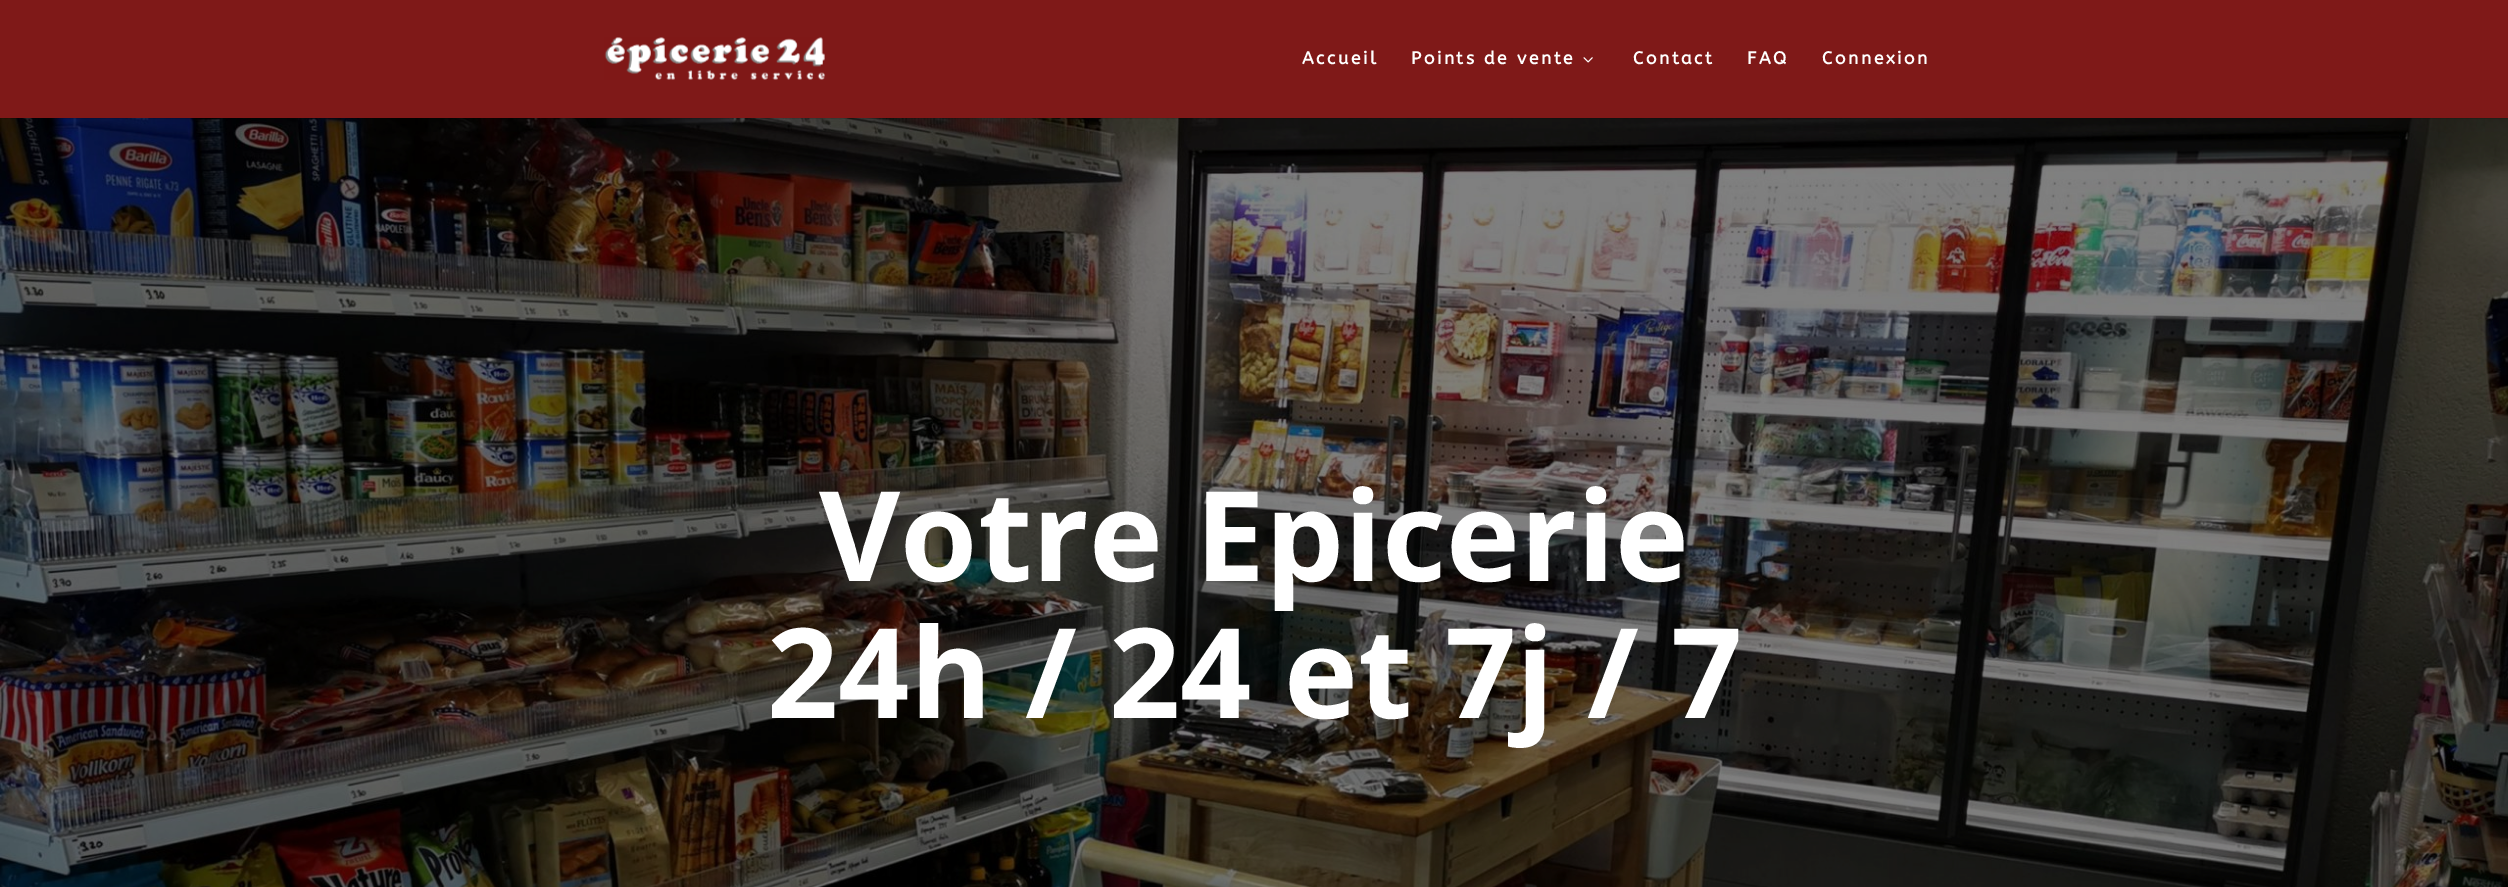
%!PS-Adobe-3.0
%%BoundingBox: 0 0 2508 887
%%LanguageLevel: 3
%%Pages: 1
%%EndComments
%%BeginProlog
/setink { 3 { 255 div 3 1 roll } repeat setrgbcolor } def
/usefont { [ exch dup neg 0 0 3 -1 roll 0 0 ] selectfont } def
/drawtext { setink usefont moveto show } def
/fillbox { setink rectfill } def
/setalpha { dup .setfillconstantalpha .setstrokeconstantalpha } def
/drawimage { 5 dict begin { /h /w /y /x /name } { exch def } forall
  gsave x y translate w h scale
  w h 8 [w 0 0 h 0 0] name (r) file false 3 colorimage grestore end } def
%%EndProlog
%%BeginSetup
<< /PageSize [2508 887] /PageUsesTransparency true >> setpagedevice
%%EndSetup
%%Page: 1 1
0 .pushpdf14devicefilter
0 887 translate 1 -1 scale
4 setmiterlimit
0 0 2508 887 255 255 255 fillbox
(assets/img3.rgb) 0 118 2508 769 drawimage
0.1 setalpha
0 0 0 setink
0 118 moveto 0 119 lineto 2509 119 lineto 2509 1 lineto 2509 118 lineto closepath fill
1 setalpha
0 0 2508 118 127 25 24 fillbox
(assets/img1.rgb) 604 37 221 43 drawimage
/ABeeZee-Bold 17.5 usefont
255 255 255 setink
1302 64 moveto 2.5 0 (Accueil) ashow
1411 64 moveto 2.5 0 (Points de vente) ashow
(assets/img2.rgb) 1583 57 10 6 drawimage
1633 64 moveto 2.5 0 (Contact) ashow
1747 64 moveto 2.5 0 (FAQ) ashow
1822 64 moveto 2.5 0 (Connexion) ashow
(Votre Epicerie) 819 581 /OpenSans-Bold 125 255 255 255 drawtext
(24h / 24 et 7j / 7) 767 718 /OpenSans-Bold 125 255 255 255 drawtext
.poppdf14devicefilter showpage
%%EOF
